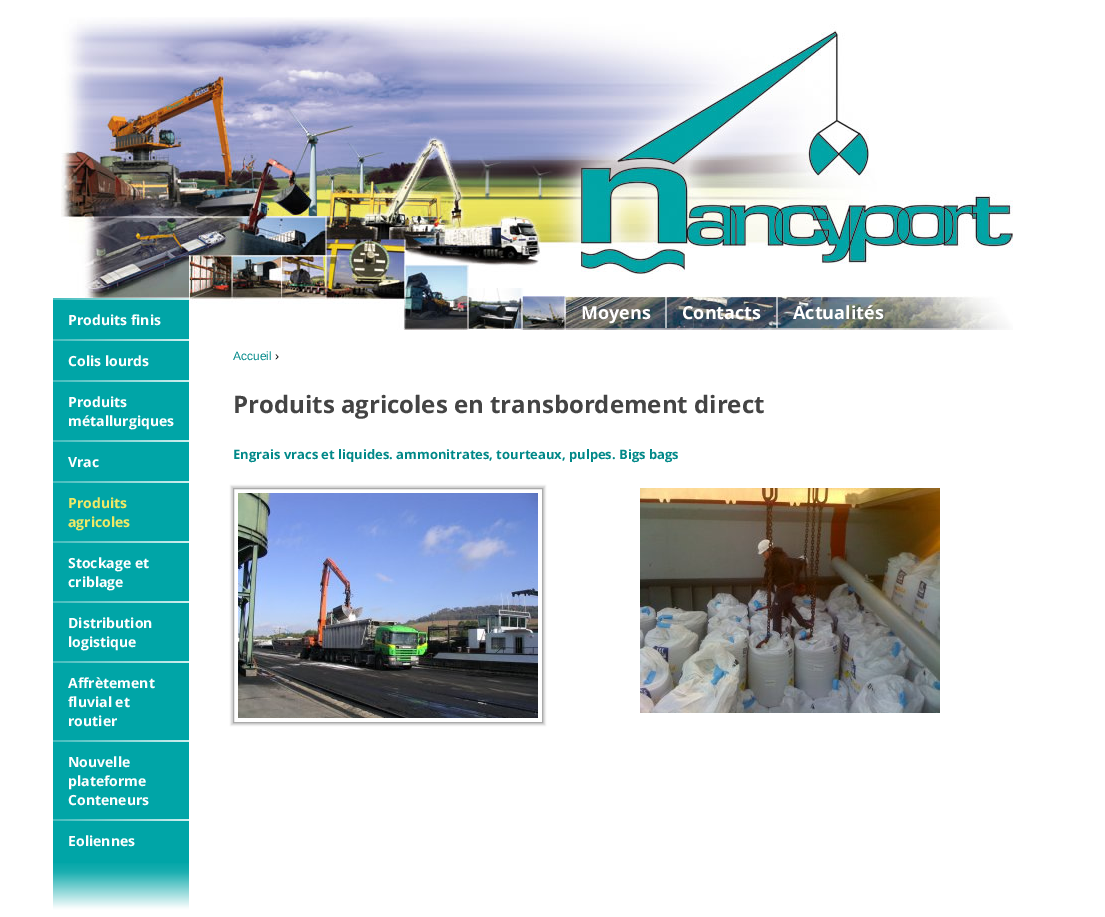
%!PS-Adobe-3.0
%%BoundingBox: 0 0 1105 917
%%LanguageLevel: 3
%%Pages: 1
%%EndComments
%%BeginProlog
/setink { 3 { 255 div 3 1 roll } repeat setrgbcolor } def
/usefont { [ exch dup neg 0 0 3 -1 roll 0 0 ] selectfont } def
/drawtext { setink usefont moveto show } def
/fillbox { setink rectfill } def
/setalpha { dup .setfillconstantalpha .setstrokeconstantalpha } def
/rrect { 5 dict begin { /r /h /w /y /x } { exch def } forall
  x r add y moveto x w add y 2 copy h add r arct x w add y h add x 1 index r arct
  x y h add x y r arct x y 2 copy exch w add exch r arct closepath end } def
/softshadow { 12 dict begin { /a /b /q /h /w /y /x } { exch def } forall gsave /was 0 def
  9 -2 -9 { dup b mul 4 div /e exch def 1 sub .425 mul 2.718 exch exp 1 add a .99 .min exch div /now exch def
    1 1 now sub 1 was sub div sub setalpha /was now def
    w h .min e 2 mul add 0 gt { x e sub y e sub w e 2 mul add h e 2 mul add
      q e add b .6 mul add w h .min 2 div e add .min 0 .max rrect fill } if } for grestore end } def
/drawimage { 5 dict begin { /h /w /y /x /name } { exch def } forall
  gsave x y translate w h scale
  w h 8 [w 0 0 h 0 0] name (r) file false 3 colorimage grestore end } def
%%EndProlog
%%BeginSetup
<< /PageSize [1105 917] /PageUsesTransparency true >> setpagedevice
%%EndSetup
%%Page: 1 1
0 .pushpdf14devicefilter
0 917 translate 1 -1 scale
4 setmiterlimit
0 0 1105 917 255 255 255 fillbox
(assets/img1.rgb) 61 17 952 313 drawimage
53 300 136 563 0 165 167 fillbox
(assets/img2.rgb) 53 298 136 2 drawimage
(assets/img3.rgb) 53 863 136 47 drawimage
(assets/img2.rgb) 53 339 136 2 drawimage
(Produits finis) 68 325 /OpenSans-Bold 14 255 255 255 drawtext
(assets/img2.rgb) 53 380 136 2 drawimage
(Colis lourds) 68 366 /OpenSans-Bold 14 255 255 255 drawtext
(assets/img2.rgb) 53 440 136 2 drawimage
(Produits) 68 407 /OpenSans-Bold 14 255 255 255 drawtext
(métallurgiques) 68 426 /OpenSans-Bold 14 255 255 255 drawtext
(assets/img2.rgb) 53 481 136 2 drawimage
(Vrac) 68 467 /OpenSans-Bold 14 255 255 255 drawtext
(assets/img2.rgb) 53 541 136 2 drawimage
(Produits) 68 508 /OpenSans-Bold 14 240 232 101 drawtext
(agricoles) 68 527 /OpenSans-Bold 14 240 232 101 drawtext
(assets/img2.rgb) 53 601 136 2 drawimage
(Stockage et) 68 568 /OpenSans-Bold 14 255 255 255 drawtext
(criblage) 68 587 /OpenSans-Bold 14 255 255 255 drawtext
(assets/img2.rgb) 53 661 136 2 drawimage
(Distribution) 68 628 /OpenSans-Bold 14 255 255 255 drawtext
(logistique) 68 647 /OpenSans-Bold 14 255 255 255 drawtext
(assets/img2.rgb) 53 740 136 2 drawimage
(Affrètement) 68 688 /OpenSans-Bold 14 255 255 255 drawtext
(fluvial et) 68 707 /OpenSans-Bold 14 255 255 255 drawtext
(routier) 68 726 /OpenSans-Bold 14 255 255 255 drawtext
(assets/img2.rgb) 53 819 136 2 drawimage
(Nouvelle) 68 767 /OpenSans-Bold 14 255 255 255 drawtext
(plateforme) 68 786 /OpenSans-Bold 14 255 255 255 drawtext
(Conteneurs) 68 805 /OpenSans-Bold 14 255 255 255 drawtext
(Eoliennes) 68 846 /OpenSans-Bold 14 255 255 255 drawtext
0.6 setalpha
665 297 2 31 255 255 255 fillbox
1 setalpha
(Moyens) 581 319 /OpenSans-Bold 18 255 255 255 drawtext
0.6 setalpha
776 297 2 31 255 255 255 fillbox
1 setalpha
(Contacts) 682 319 /OpenSans-Bold 18 255 255 255 drawtext
(Actualités) 793 319 /OpenSans-Bold 18 255 255 255 drawtext
(Accueil) 233 360 /LiberationSans-Regular 12 0 136 136 drawtext
(›) 275 360 /LiberationSans-Regular 12 0 0 0 drawtext
(Produits agricoles en transbordement direct) 233 413 /OpenSans-Bold 24 68 68 68 drawtext
(Engrais vracs et liquides. ammonitrates, tourteaux, pulpes. Bigs bags) 233 459 /OpenSans-Bold 13 0 136 136 drawtext
gsave
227 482 moveto 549 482 lineto 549 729 lineto 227 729 lineto closepath 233 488 moveto 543 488 lineto 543 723 lineto 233 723 lineto closepath eoclip newpath
204 204 204 setink
231 486 314 239 0 1 1 softshadow
grestore
170 170 170 setink
233.5 488.5 309 234 rectstroke
(assets/img4.rgb) 238 493 300 225 drawimage
(assets/img5.rgb) 640 488 300 225 drawimage
.poppdf14devicefilter showpage
%%EOF
